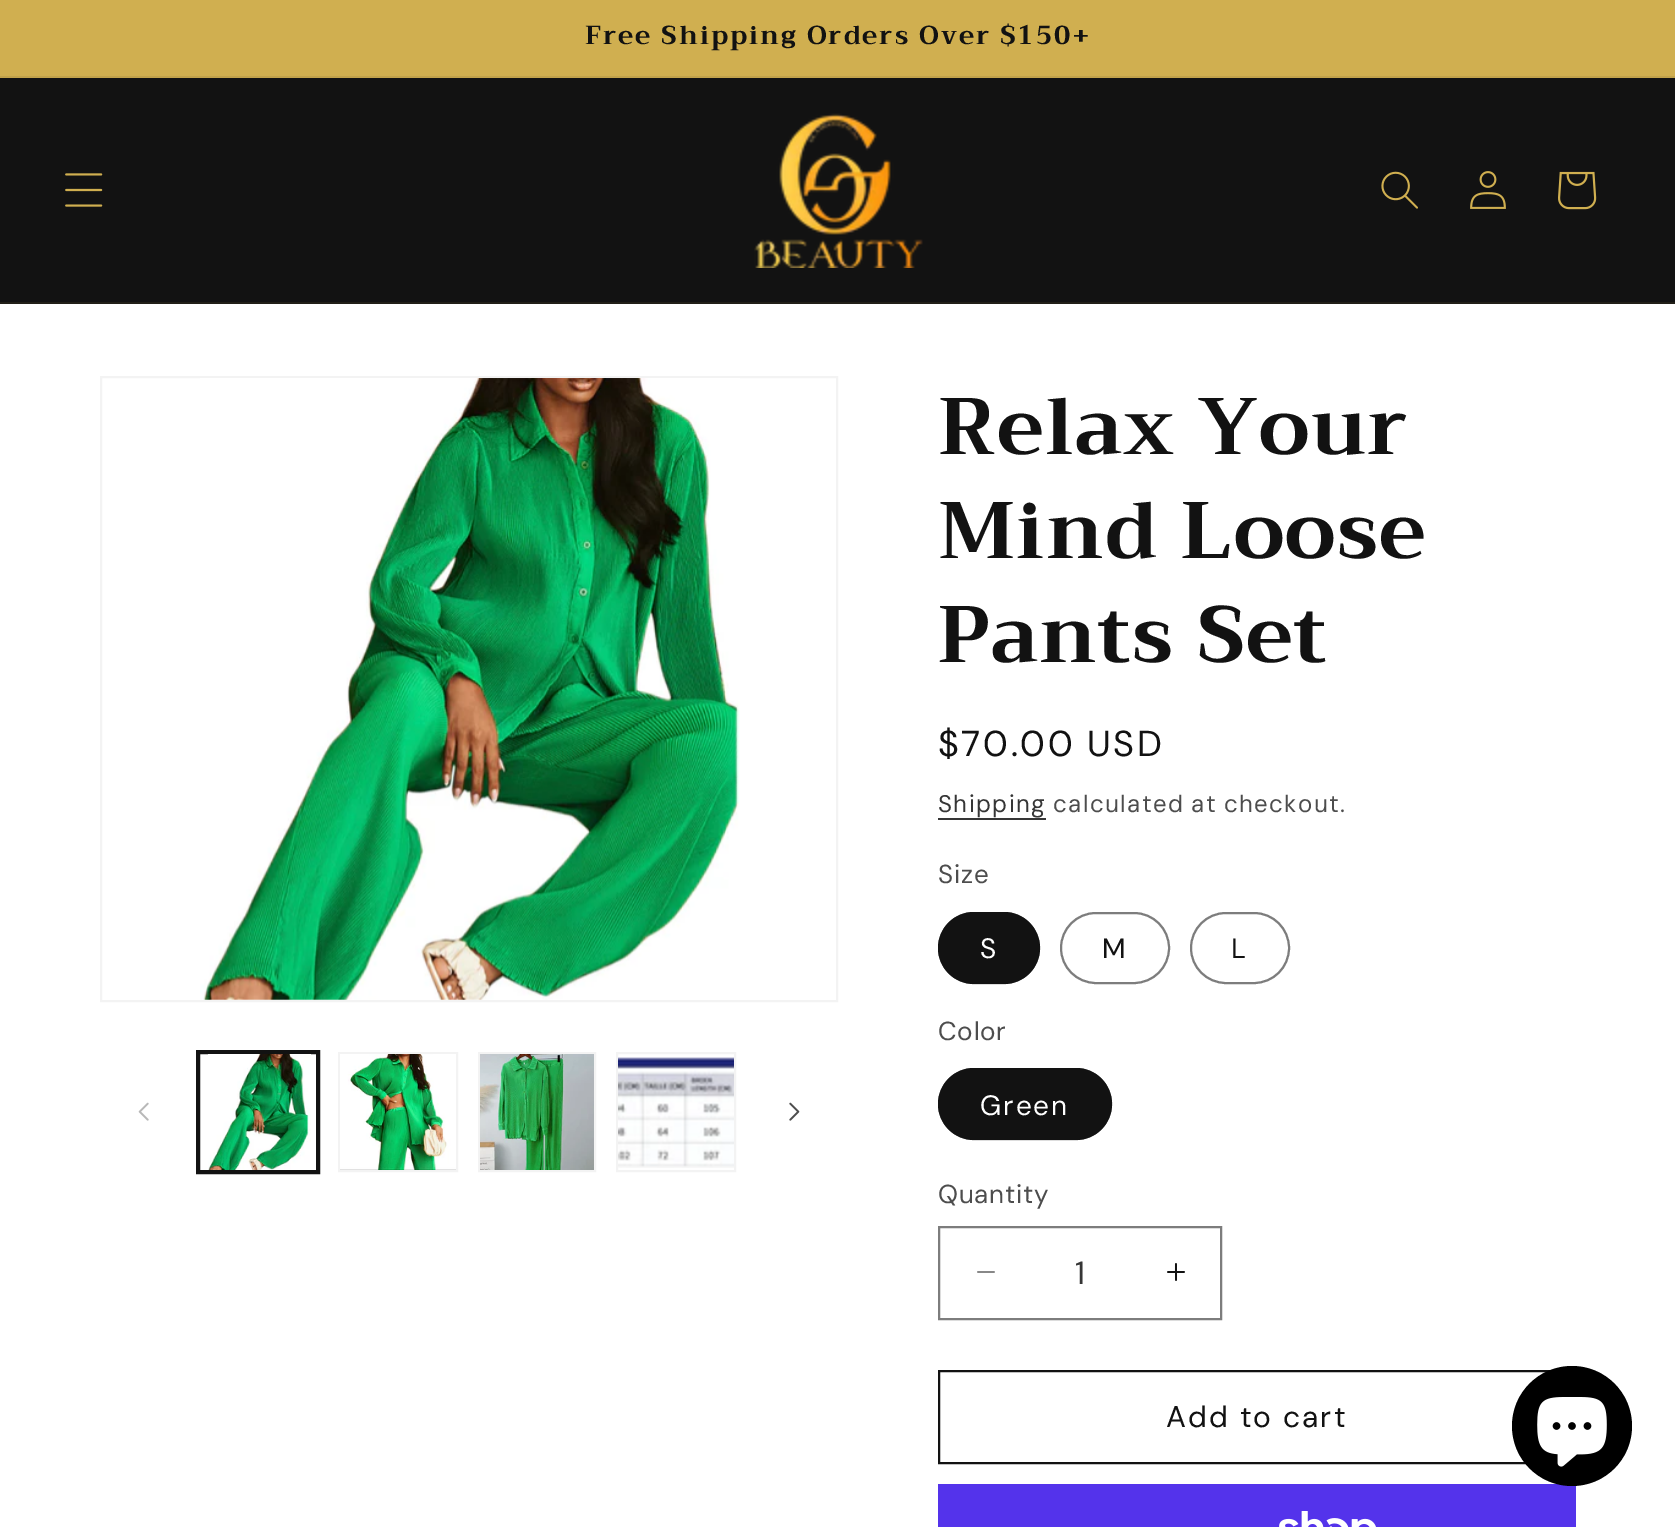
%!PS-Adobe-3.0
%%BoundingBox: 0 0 1675 1527
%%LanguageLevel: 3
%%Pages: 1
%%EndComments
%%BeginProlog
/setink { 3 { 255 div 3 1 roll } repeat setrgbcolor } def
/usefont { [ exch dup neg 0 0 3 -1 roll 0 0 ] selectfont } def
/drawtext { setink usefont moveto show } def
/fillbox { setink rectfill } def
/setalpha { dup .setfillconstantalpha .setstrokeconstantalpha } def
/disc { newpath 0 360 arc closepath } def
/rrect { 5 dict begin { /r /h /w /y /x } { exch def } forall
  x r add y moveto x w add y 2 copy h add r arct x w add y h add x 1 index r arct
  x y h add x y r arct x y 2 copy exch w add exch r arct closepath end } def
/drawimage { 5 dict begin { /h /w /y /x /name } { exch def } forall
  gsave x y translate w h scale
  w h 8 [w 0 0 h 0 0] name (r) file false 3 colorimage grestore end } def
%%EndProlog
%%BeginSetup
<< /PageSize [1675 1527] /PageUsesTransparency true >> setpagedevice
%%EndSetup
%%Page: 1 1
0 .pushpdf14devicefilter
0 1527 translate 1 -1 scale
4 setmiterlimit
0 0 1675 1527 255 255 255 fillbox
0 0 1675 76 208 175 80 fillbox
0 76 1675 2 193 162 75 fillbox
/Trirong-Bold 26 usefont
18 18 18 setink
585 44 moveto 2 0 (Free Shipping Orders Over $150+) ashow
0 78 1675 224 18 18 18 fillbox
0 302 1675 2 33 31 23 fillbox
(assets/img1.rgb) 65 173 38 34 drawimage
(assets/img2.rgb) 754 113 169 155 drawimage
(assets/img3.rgb) 1381 171 37 38 drawimage
(assets/img4.rgb) 1470 171 36 38 drawimage
(assets/img5.rgb) 1558 171 39 39 drawimage
243 243 243 setink
2 setlinewidth
101 377 736 624 rectstroke
(assets/img6.rgb) 200 378 540 622 drawimage
(assets/img7.rgb) 138 1102 11 19 drawimage
18 18 18 setink
197 1051 122 122 rectstroke
199 1053 118 118 rectstroke
(assets/img8.rgb) 208 1054 103 116 drawimage
243 243 243 setink
339 1053 118 118 rectstroke
(assets/img9.rgb) 340 1054 116 116 drawimage
479 1053 116 118 rectstroke
(assets/img10.rgb) 480 1054 114 116 drawimage
617 1053 118 118 rectstroke
(assets/img11.rgb) 618 1057 116 111 drawimage
(assets/img12.rgb) 789 1102 11 19 drawimage
/Trirong-Bold 80 usefont
18 18 18 setink
938 454 moveto 1.25 0 (Relax Your) ashow
938 558 moveto 1.25 0 (Mind Loose) ashow
938 662 moveto 1.25 0 (Pants Set) ashow
/DMSans-Regular 36 usefont
938 756 moveto 2.6 0 ($70.00 USD) ashow
/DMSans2-Regular 24 usefont
54 54 54 setink
938 812 moveto 1.4 0 (Shipping) ashow
938 818 108 2 54 54 54 fillbox
77 77 77 setink
1053 812 moveto -1 0 32 1.4 0 (calculated at checkout.) awidthshow
/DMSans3-Regular 26 usefont
938 883 moveto 0.75 0 (Size) ashow
18 18 18 setink
938 912 102 72 36 rrect fill
0.55 setalpha
939 913 100 70 35 rrect stroke
/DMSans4-Regular 28 usefont
1 setalpha
255 255 255 setink
980 958 moveto 2 0 (S) ashow
125 125 125 setink
1061 913 108 70 35 rrect stroke
18 18 18 setink
1102 958 moveto 2 0 (M) ashow
125 125 125 setink
1191 913 98 70 35 rrect stroke
/DMSans2-Regular 28 usefont
18 18 18 setink
1231 958 moveto 2 0 (L) ashow
/DMSans3-Regular 26 usefont
77 77 77 setink
938 1040 moveto 0.75 0 (Color) ashow
18 18 18 setink
938 1068 174 72 36 rrect fill
0.55 setalpha
939 1069 172 70 35 rrect stroke
/DMSans4-Regular 28 usefont
1 setalpha
255 255 255 setink
980 1115 moveto 2 0 (Green) ashow
/DMSans3-Regular 26 usefont
77 77 77 setink
938 1203 moveto 0.75 0 (Quantity) ashow
(assets/img13.rgb) 977 1271 18 2 drawimage
(assets/img14.rgb) 1167 1263 18 18 drawimage
125 125 125 setink
939 1227 282 92 rectstroke
(1) 1075 1284 /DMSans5-Regular 32 54 54 54 drawtext
18 18 18 setink
939 1371 636 92 rectstroke
/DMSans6-Regular 30 usefont
1166 1427 moveto 2 0 (Add to cart) ashow
938 1484 638 43 84 51 235 fillbox
(assets/img15.rgb) 1279 1511 97 16 drawimage
0 0 0 setink
1572 1426 60 disc fill
(assets/img16.rgb) 1537 1397 70 70 drawimage
.poppdf14devicefilter showpage
%%EOF
